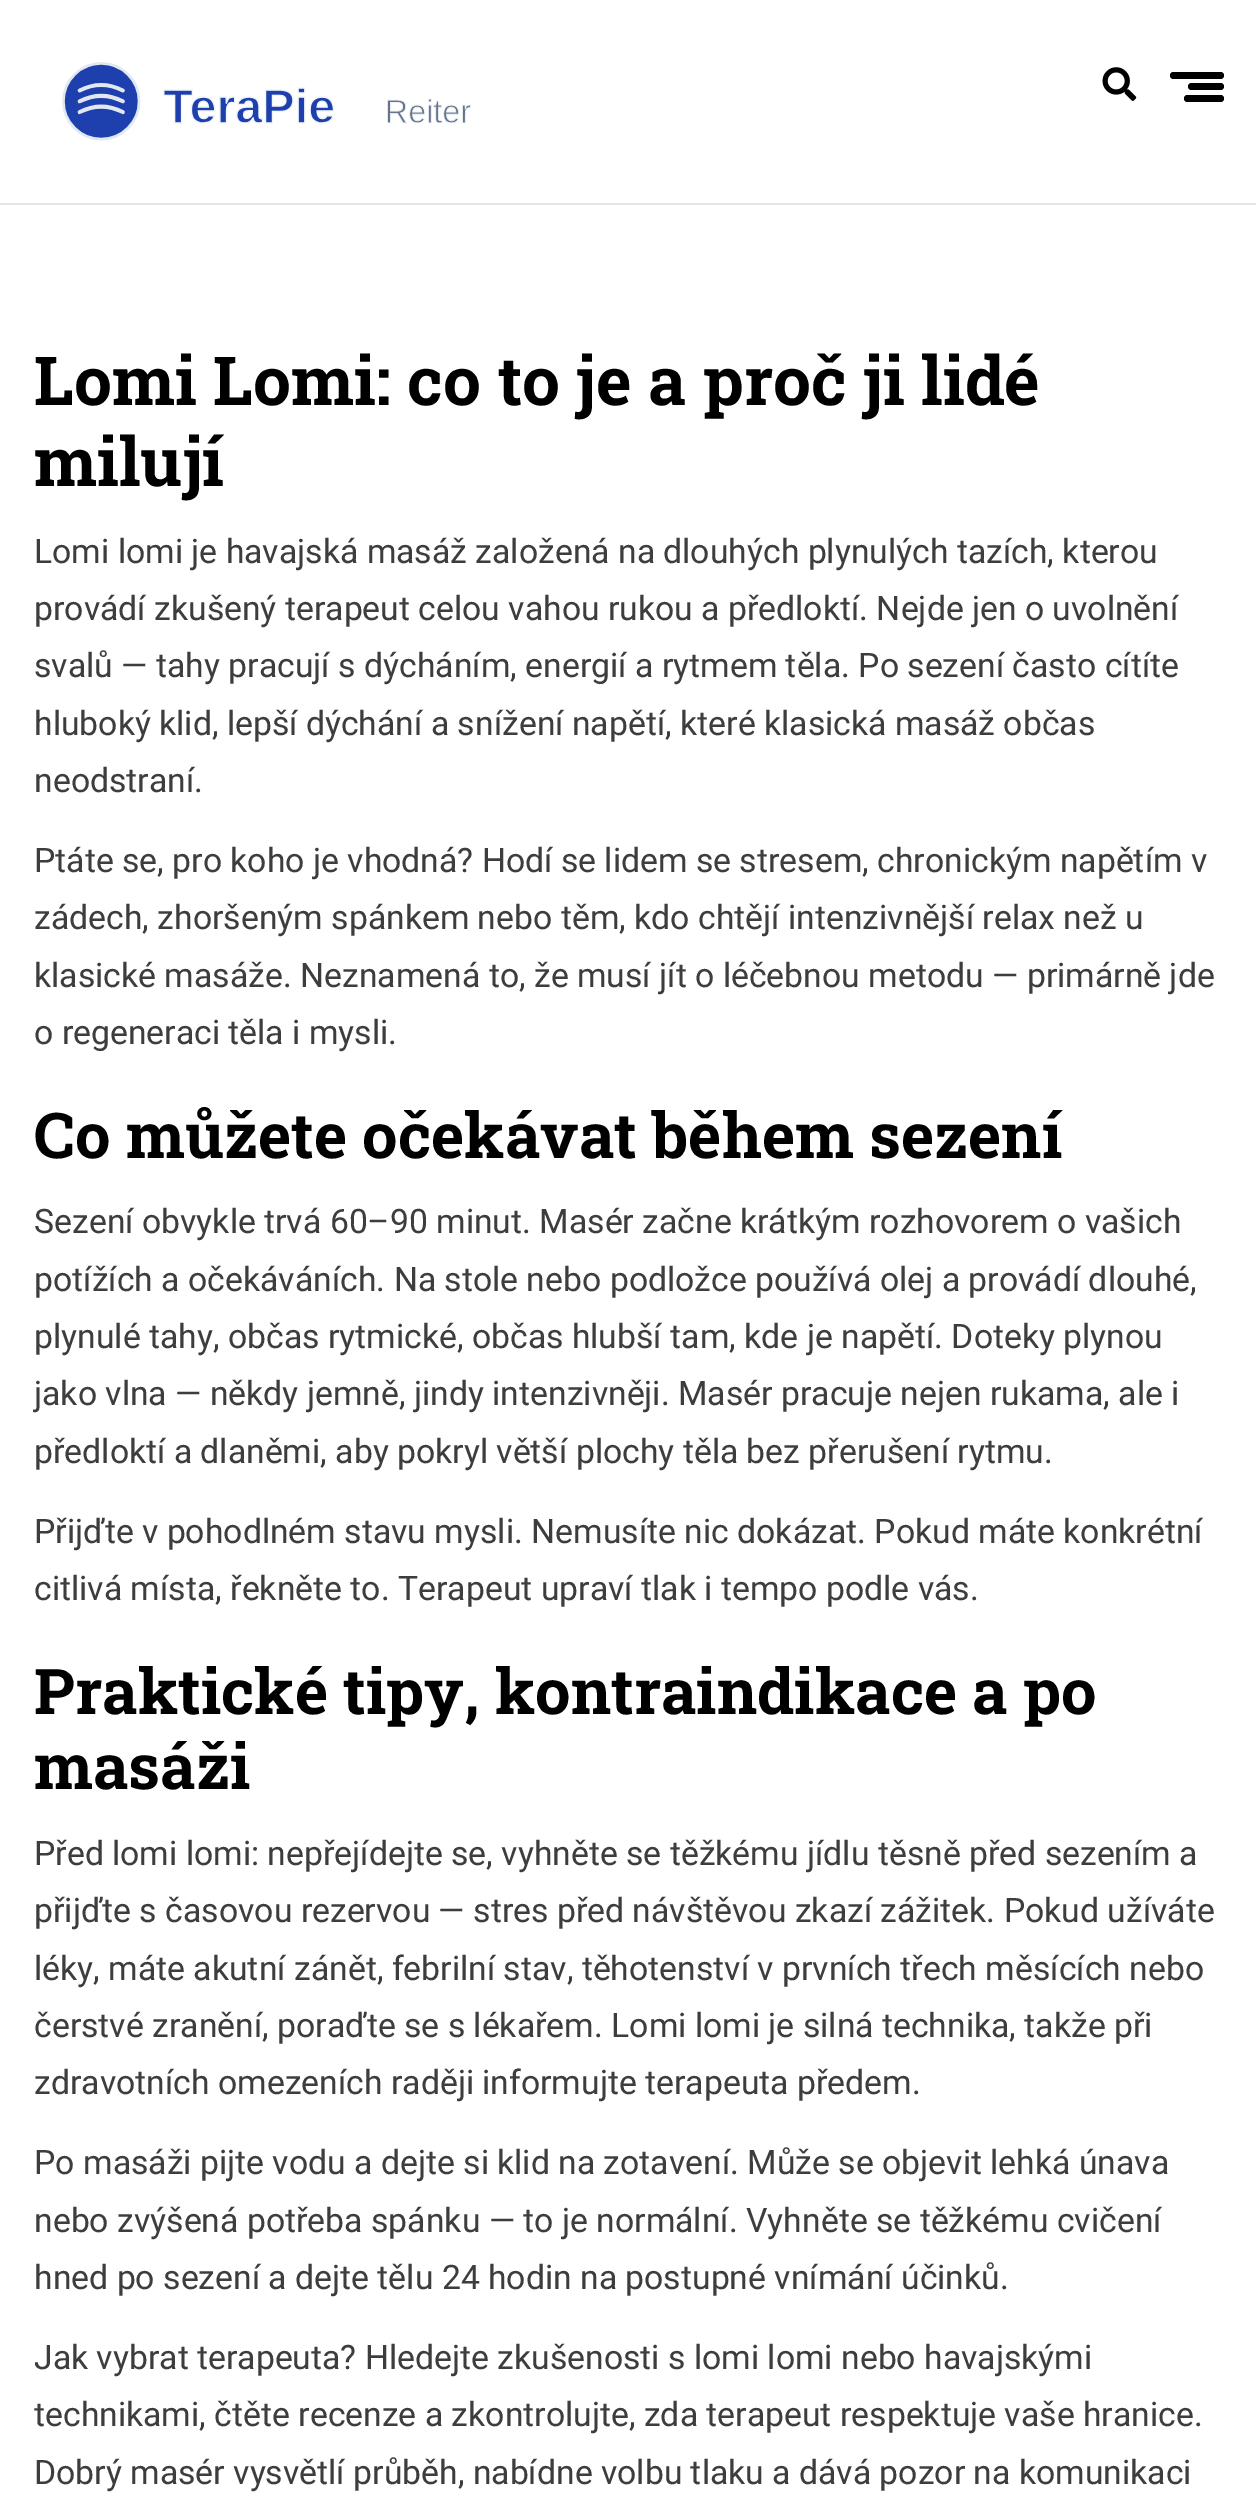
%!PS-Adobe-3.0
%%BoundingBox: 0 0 1256 2519
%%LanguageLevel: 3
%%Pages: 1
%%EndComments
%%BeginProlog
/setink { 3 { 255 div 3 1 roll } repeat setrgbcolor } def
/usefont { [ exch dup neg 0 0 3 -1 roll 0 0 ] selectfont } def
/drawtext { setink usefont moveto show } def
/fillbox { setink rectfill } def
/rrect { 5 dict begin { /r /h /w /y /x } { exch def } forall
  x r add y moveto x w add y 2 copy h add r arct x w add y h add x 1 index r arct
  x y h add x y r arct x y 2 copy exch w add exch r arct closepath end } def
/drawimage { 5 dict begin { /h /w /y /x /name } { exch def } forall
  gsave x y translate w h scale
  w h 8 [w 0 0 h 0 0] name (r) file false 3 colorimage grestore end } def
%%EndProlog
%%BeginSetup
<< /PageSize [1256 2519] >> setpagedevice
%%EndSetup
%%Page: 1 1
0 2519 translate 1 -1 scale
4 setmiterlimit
0 0 1256 2519 255 255 255 fillbox
0 203 1256 2 229 229 229 fillbox
(assets/img1.rgb) 62 62 409 79 drawimage
(assets/img2.rgb) 1102 67 35 34 drawimage
0 0 0 setink
1170 72 54 7 3.5 rrect fill
1188 83 36 7 3.5 rrect fill
1184 95 40 7 3.5 rrect fill
(Lomi Lomi: co to je a proč ji lidé) 34 405 /RobotoSlab-Bold 67.5 0 0 0 drawtext
(milují) 34 486 /RobotoSlab-Bold 67.5 0 0 0 drawtext
(Lomi lomi je havajská masáž založená na dlouhých plynulých tazích, kterou) 34 563 /Roboto-Regular 33.75 61 61 61 drawtext
(provádí zkušený terapeut celou vahou rukou a předloktí. Nejde jen o uvolnění) 34 620 /Roboto-Regular 33.75 61 61 61 drawtext
(svalů — tahy pracují s dýcháním, energií a rytmem těla. Po sezení často cítíte) 34 677 /Roboto-Regular 33.75 61 61 61 drawtext
(hluboký klid, lepší dýchání a snížení napětí, které klasická masáž občas) 34 735 /Roboto-Regular 33.75 61 61 61 drawtext
(neodstraní.) 34 792 /Roboto-Regular 33.75 61 61 61 drawtext
(Ptáte se, pro koho je vhodná? Hodí se lidem se stresem, chronickým napětím v) 34 872 /Roboto-Regular 33.75 61 61 61 drawtext
(zádech, zhoršeným spánkem nebo těm, kdo chtějí intenzivnější relax než u) 34 929 /Roboto-Regular 33.75 61 61 61 drawtext
(klasické masáže. Neznamená to, že musí jít o léčebnou metodu — primárně jde) 34 987 /Roboto-Regular 33.75 61 61 61 drawtext
(o regeneraci těla i mysli.) 34 1044 /Roboto-Regular 33.75 61 61 61 drawtext
(Co můžete očekávat během sezení) 34 1158 /RobotoSlab-Bold 63 0 0 0 drawtext
(Sezení obvykle trvá 60–90 minut. Masér začne krátkým rozhovorem o vašich) 34 1233 /Roboto-Regular 33.75 61 61 61 drawtext
(potížích a očekáváních. Na stole nebo podložce používá olej a provádí dlouhé,) 34 1291 /Roboto-Regular 33.75 61 61 61 drawtext
(plynulé tahy, občas rytmické, občas hlubší tam, kde je napětí. Doteky plynou) 34 1348 /Roboto-Regular 33.75 61 61 61 drawtext
(jako vlna — někdy jemně, jindy intenzivněji. Masér pracuje nejen rukama, ale i) 34 1405 /Roboto-Regular 33.75 61 61 61 drawtext
(předloktí a dlaněmi, aby pokryl větší plochy těla bez přerušení rytmu.) 34 1463 /Roboto-Regular 33.75 61 61 61 drawtext
(Přijďte v pohodlném stavu mysli. Nemusíte nic dokázat. Pokud máte konkrétní) 34 1543 /Roboto-Regular 33.75 61 61 61 drawtext
(citlivá místa, řekněte to. Terapeut upraví tlak i tempo podle vás.) 34 1600 /Roboto-Regular 33.75 61 61 61 drawtext
(Praktické tipy, kontraindikace a po) 34 1714 /RobotoSlab-Bold 63 0 0 0 drawtext
(masáži) 34 1789 /RobotoSlab-Bold 63 0 0 0 drawtext
(Před lomi lomi: nepřejídejte se, vyhněte se těžkému jídlu těsně před sezením a) 34 1865 /Roboto-Regular 33.75 61 61 61 drawtext
(přijďte s časovou rezervou — stres před návštěvou zkazí zážitek. Pokud užíváte) 34 1922 /Roboto-Regular 33.75 61 61 61 drawtext
(léky, máte akutní zánět, febrilní stav, těhotenství v prvních třech měsících nebo) 34 1980 /Roboto-Regular 33.75 61 61 61 drawtext
(čerstvé zranění, poraďte se s lékařem. Lomi lomi je silná technika, takže při) 34 2037 /Roboto-Regular 33.75 61 61 61 drawtext
(zdravotních omezeních raději informujte terapeuta předem.) 34 2094 /Roboto-Regular 33.75 61 61 61 drawtext
(Po masáži pijte vodu a dejte si klid na zotavení. Může se objevit lehká únava) 34 2174 /Roboto-Regular 33.75 61 61 61 drawtext
(nebo zvýšená potřeba spánku — to je normální. Vyhněte se těžkému cvičení) 34 2232 /Roboto-Regular 33.75 61 61 61 drawtext
(hned po sezení a dejte tělu 24 hodin na postupné vnímání účinků.) 34 2289 /Roboto-Regular 33.75 61 61 61 drawtext
(Jak vybrat terapeuta? Hledejte zkušenosti s lomi lomi nebo havajskými) 34 2369 /Roboto-Regular 33.75 61 61 61 drawtext
(technikami, čtěte recenze a zkontrolujte, zda terapeut respektuje vaše hranice.) 34 2426 /Roboto-Regular 33.75 61 61 61 drawtext
(Dobrý masér vysvětlí průběh, nabídne volbu tlaku a dává pozor na komunikaci) 34 2484 /Roboto-Regular 33.75 61 61 61 drawtext
showpage
%%EOF
